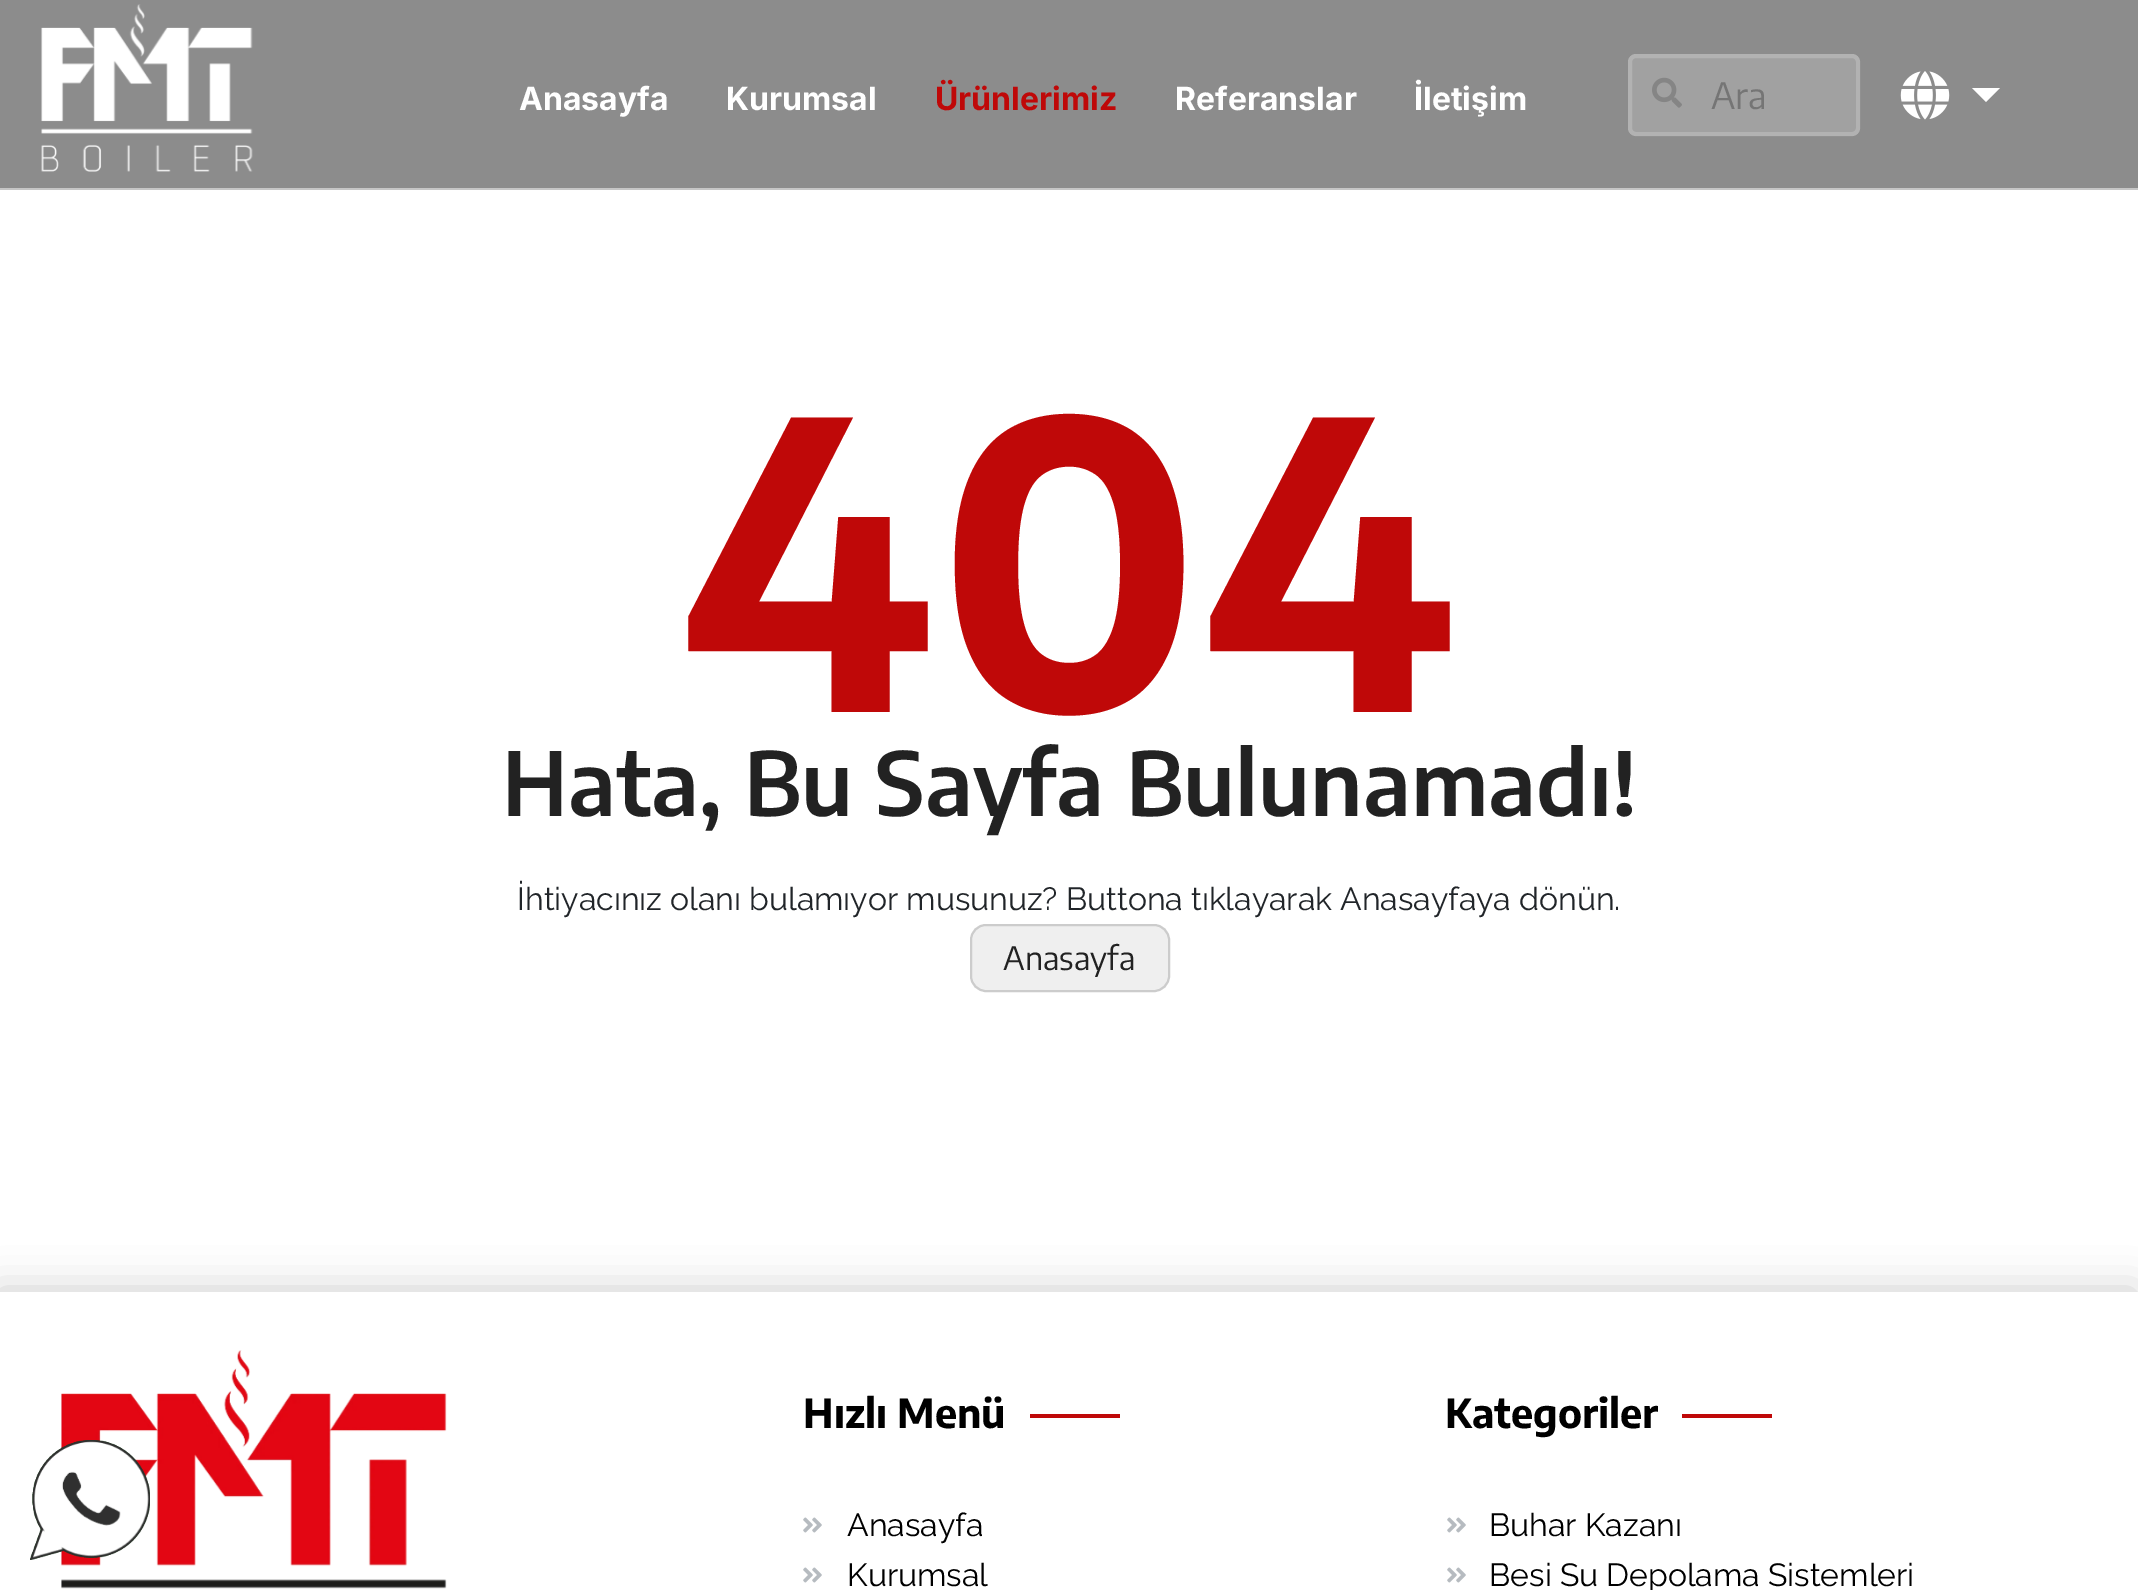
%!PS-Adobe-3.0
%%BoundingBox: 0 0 2138 1590
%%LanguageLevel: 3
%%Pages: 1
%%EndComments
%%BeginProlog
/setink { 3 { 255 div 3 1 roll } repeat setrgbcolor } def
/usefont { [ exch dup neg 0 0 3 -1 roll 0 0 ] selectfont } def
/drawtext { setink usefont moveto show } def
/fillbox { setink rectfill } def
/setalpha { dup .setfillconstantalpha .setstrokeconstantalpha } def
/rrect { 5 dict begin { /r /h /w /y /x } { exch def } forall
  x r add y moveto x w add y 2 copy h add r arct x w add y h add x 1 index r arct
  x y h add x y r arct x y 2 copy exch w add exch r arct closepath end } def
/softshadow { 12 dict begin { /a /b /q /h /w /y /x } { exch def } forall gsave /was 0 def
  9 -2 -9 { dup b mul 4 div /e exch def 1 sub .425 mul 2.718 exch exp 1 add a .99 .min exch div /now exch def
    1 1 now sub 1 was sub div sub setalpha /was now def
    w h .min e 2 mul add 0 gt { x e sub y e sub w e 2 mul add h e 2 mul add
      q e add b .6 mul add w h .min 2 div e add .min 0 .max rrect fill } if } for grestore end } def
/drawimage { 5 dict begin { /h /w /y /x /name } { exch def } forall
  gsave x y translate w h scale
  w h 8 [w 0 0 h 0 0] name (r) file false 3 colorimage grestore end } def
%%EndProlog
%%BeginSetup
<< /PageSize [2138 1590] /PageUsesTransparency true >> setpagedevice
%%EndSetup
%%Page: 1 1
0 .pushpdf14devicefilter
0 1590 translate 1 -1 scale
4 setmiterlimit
0 0 2138 1590 255 255 255 fillbox
0 0 2138 188 140 140 140 fillbox
0 188 2138 2 198 198 198 fillbox
(assets/img1.rgb) 41 4 212 168 drawimage
(Anasayfa) 519 110 /Inter-Bold 32 255 255 255 drawtext
(Kurumsal) 726 110 /Inter-Bold 32 255 255 255 drawtext
(Ürünlerimiz) 935 110 /Inter-Bold 32 191 8 8 drawtext
(Referanslar) 1175 110 /Inter-Bold 32 255 255 255 drawtext
(İletişim) 1414 110 /Inter-Bold 32 255 255 255 drawtext
161 161 161 setink
1628 54 232 82 8 rrect fill
0.18 setalpha
255 255 255 setink
4 setlinewidth
1630 56 228 78 6 rrect stroke
1 setalpha
(assets/img2.rgb) 1652 77 30 31 drawimage
(Ara) 1711 109 /EncodeSansCondensed-Regular 36 117 117 117 drawtext
(assets/img3.rgb) 1900 71 50 49 drawimage
255 255 255 setink
1972 88 moveto 2000 88 lineto 1986 102 lineto closepath fill
(404) 681 712 /EncodeSansCondensed-Bold 400 191 8 8 drawtext
(Hata, Bu Sayfa Bulunamadı!) 502 816 /EncodeSansCondensed-SemiBold 88 34 34 34 drawtext
(İhtiyacınız olanı bulamıyor musunuz? Buttona tıklayarak Anasayfaya dönün.) 517 910 /Raleway-Regular 32 33 37 41 drawtext
239 239 239 setink
971 925 198 66 15 rrect gsave fill grestore
204 204 204 setink
2 setlinewidth
stroke
(Anasayfa) 1003 970 /EncodeSansCondensed-Regular 32 34 34 34 drawtext
204 204 204 setink
-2 1290 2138 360 0 20 1 softshadow
0 1292 2138 298 255 255 255 fillbox
(assets/img6.rgb) 61 1350 386 239 drawimage
(assets/img4.rgb) 30 1440 120 120 drawimage
(assets/img5.rgb) 30 1440 120 120 drawimage
(Hızlı Menü) 803 1428 /EncodeSansCondensed-Bold 40 0 0 0 drawtext
1030 1414 90 4 191 8 8 fillbox
(assets/img7.rgb) 803 1517 19 16 drawimage
(Anasayfa) 847 1536 /Raleway-Regular 32 0 0 0 drawtext
(assets/img7.rgb) 803 1567 19 16 drawimage
(Kurumsal) 847 1586 /Raleway-Regular 32 0 0 0 drawtext
(Kategoriler) 1445 1428 /EncodeSansCondensed-Bold 40 0 0 0 drawtext
1682 1414 90 4 191 8 8 fillbox
(assets/img7.rgb) 1447 1517 19 16 drawimage
(Buhar Kazanı) 1489 1536 /Raleway-Regular 32 0 0 0 drawtext
(assets/img7.rgb) 1447 1567 19 16 drawimage
(Besi Su Depolama Sistemleri) 1489 1586 /Raleway-Regular 32 0 0 0 drawtext
.poppdf14devicefilter showpage
%%EOF
